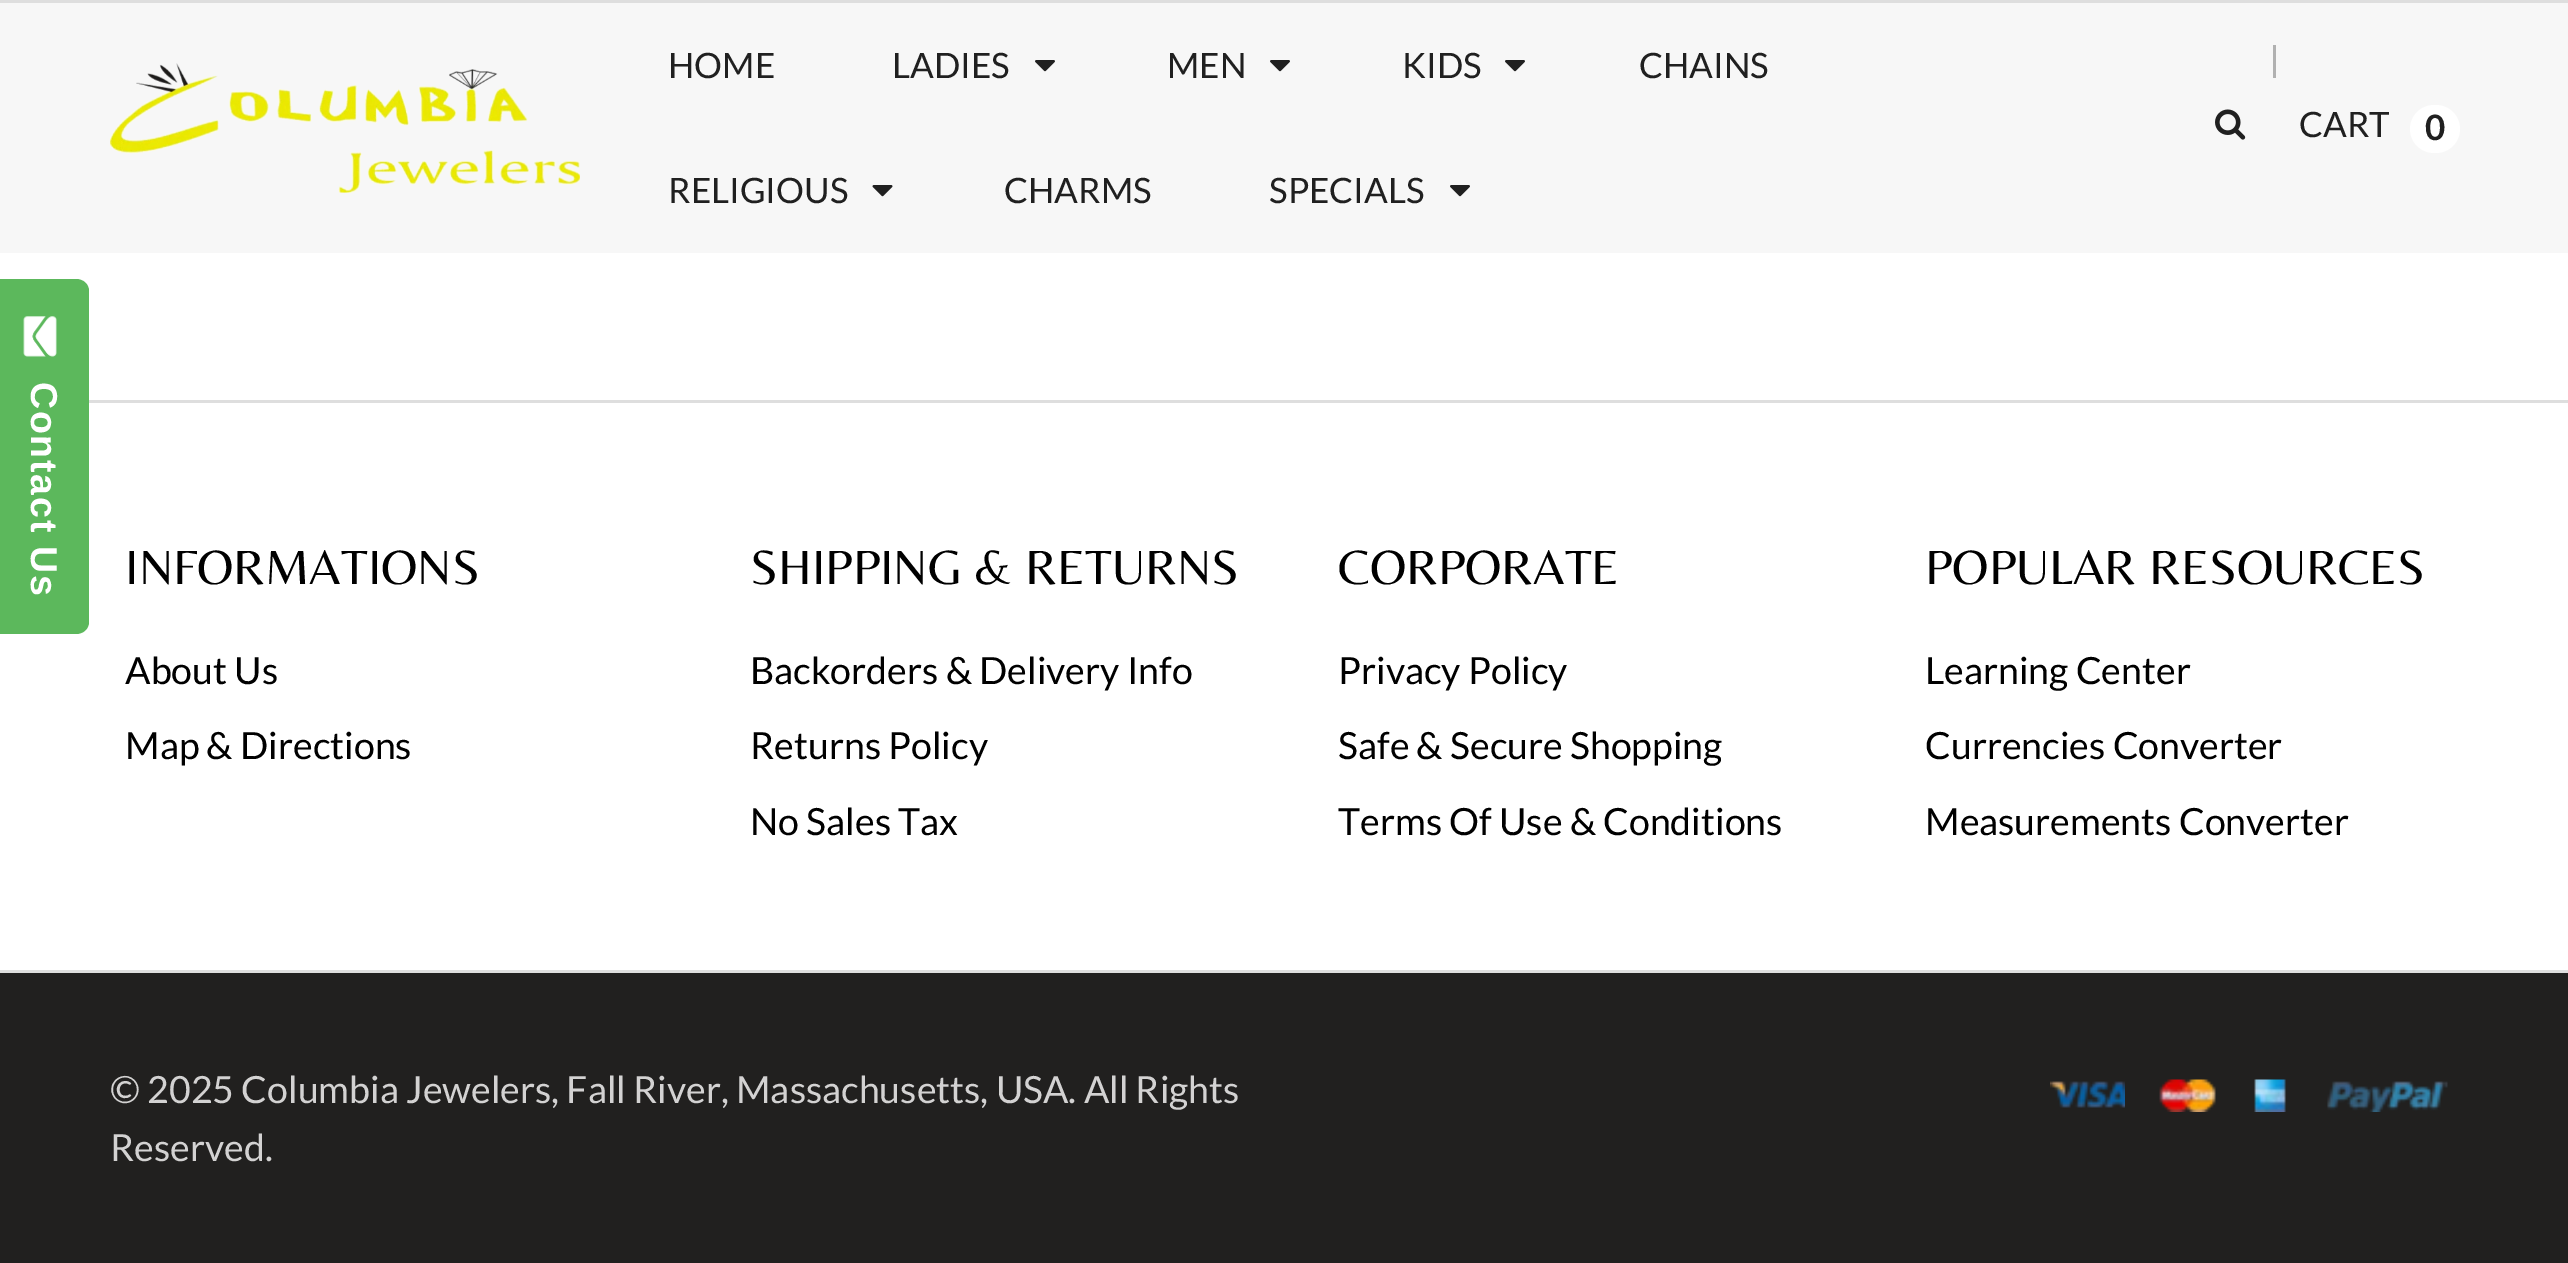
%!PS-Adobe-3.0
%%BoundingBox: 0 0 2568 1263
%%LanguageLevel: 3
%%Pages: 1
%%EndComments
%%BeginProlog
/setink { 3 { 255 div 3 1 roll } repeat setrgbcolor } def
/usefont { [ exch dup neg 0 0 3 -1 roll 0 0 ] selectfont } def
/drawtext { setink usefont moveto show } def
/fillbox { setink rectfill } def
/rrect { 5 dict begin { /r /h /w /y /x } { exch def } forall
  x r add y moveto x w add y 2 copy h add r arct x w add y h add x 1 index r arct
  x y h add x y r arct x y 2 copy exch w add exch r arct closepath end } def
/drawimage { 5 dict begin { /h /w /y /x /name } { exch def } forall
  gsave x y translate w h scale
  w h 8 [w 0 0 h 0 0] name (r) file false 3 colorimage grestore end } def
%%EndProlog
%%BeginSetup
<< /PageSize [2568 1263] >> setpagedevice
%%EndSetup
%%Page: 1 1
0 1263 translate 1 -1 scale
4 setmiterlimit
0 0 2568 1263 255 255 255 fillbox
0 3 2568 250 247 247 247 fillbox
0 0 2568 3 222 222 222 fillbox
(assets/img1.rgb) 110 63 470 130 drawimage
(HOME) 668 78 /Lato-Regular 35 32 32 32 drawtext
(LADIES) 892 78 /Lato-Regular 35 32 32 32 drawtext
(assets/img2.rgb) 1035 60 20 12 drawimage
(MEN) 1167 78 /Lato-Regular 35 32 32 32 drawtext
(assets/img2.rgb) 1270 60 20 12 drawimage
(KIDS) 1402 78 /Lato-Regular 35 32 32 32 drawtext
(assets/img2.rgb) 1505 60 20 12 drawimage
(CHAINS) 1639 78 /Lato-Regular 35 32 32 32 drawtext
(RELIGIOUS) 668 203 /Lato-Regular 35 32 32 32 drawtext
(assets/img3.rgb) 872 185 21 12 drawimage
(CHARMS) 1004 203 /Lato-Regular 35 32 32 32 drawtext
(SPECIALS) 1269 203 /Lato-Regular 35 32 32 32 drawtext
(assets/img2.rgb) 1450 185 20 12 drawimage
(assets/img4.rgb) 2215 109 31 31 drawimage
2273 45 3 33 177 177 177 fillbox
(CART) 2299 137 /Lato-Regular 35 32 32 32 drawtext
255 255 255 setink
2410 105 50 48 24 rrect fill
(0) 2425 140 /Lato-Bold 35 32 32 32 drawtext
92 184 92 setink
89 291 moveto 89 622 lineto 89 629 83 634 76 634 curveto 0 634 lineto 0 279 lineto 76 279 lineto 83 279 89 284 89 291 curveto closepath fill
(assets/img5.rgb) 23 316 34 41 drawimage
/LiberationSans-Bold 37.5 usefont
255 255 255 setink
gsave 31 382 translate 90 rotate 0 0 moveto 1.75 0 (Contact Us) ashow grestore
89 400 2479 3 222 222 222 fillbox
0 970 2568 3 222 222 222 fillbox
(INFORMATIONS) 125 584 /Belleza-Regular 50 0 0 0 drawtext
(About Us) 125 684 /Lato-Regular 37.5 0 0 0 drawtext
(Map & Directions) 125 759 /Lato-Regular 37.5 0 0 0 drawtext
(SHIPPING & RETURNS) 750 584 /Belleza-Regular 50 0 0 0 drawtext
(Backorders & Delivery Info) 750 684 /Lato-Regular 37.5 0 0 0 drawtext
(Returns Policy) 750 759 /Lato-Regular 37.5 0 0 0 drawtext
(No Sales Tax) 750 835 /Lato-Regular 37.5 0 0 0 drawtext
(CORPORATE) 1338 584 /Belleza-Regular 50 0 0 0 drawtext
(Privacy Policy) 1338 684 /Lato-Regular 37.5 0 0 0 drawtext
(Safe & Secure Shopping) 1338 759 /Lato-Regular 37.5 0 0 0 drawtext
(Terms Of Use & Conditions) 1338 835 /Lato-Regular 37.5 0 0 0 drawtext
(POPULAR RESOURCES) 1925 584 /Belleza-Regular 50 0 0 0 drawtext
(Learning Center) 1925 684 /Lato-Regular 37.5 0 0 0 drawtext
(Currencies Converter) 1925 759 /Lato-Regular 37.5 0 0 0 drawtext
(Measurements Converter) 1925 835 /Lato-Regular 37.5 0 0 0 drawtext
0 973 2568 290 33 32 31 fillbox
(© 2025 Columbia Jewelers, Fall River, Massachusetts, USA. All Rights) 110 1103 /Lato-Regular 37.5 211 210 210 drawtext
(Reserved.) 110 1161 /Lato-Regular 37.5 211 210 210 drawtext
(assets/img6.rgb) 2050 1081 75 27 drawimage
(assets/img7.rgb) 2159 1079 57 33 drawimage
(assets/img8.rgb) 2254 1079 32 33 drawimage
(assets/img9.rgb) 2327 1081 121 31 drawimage
showpage
%%EOF
